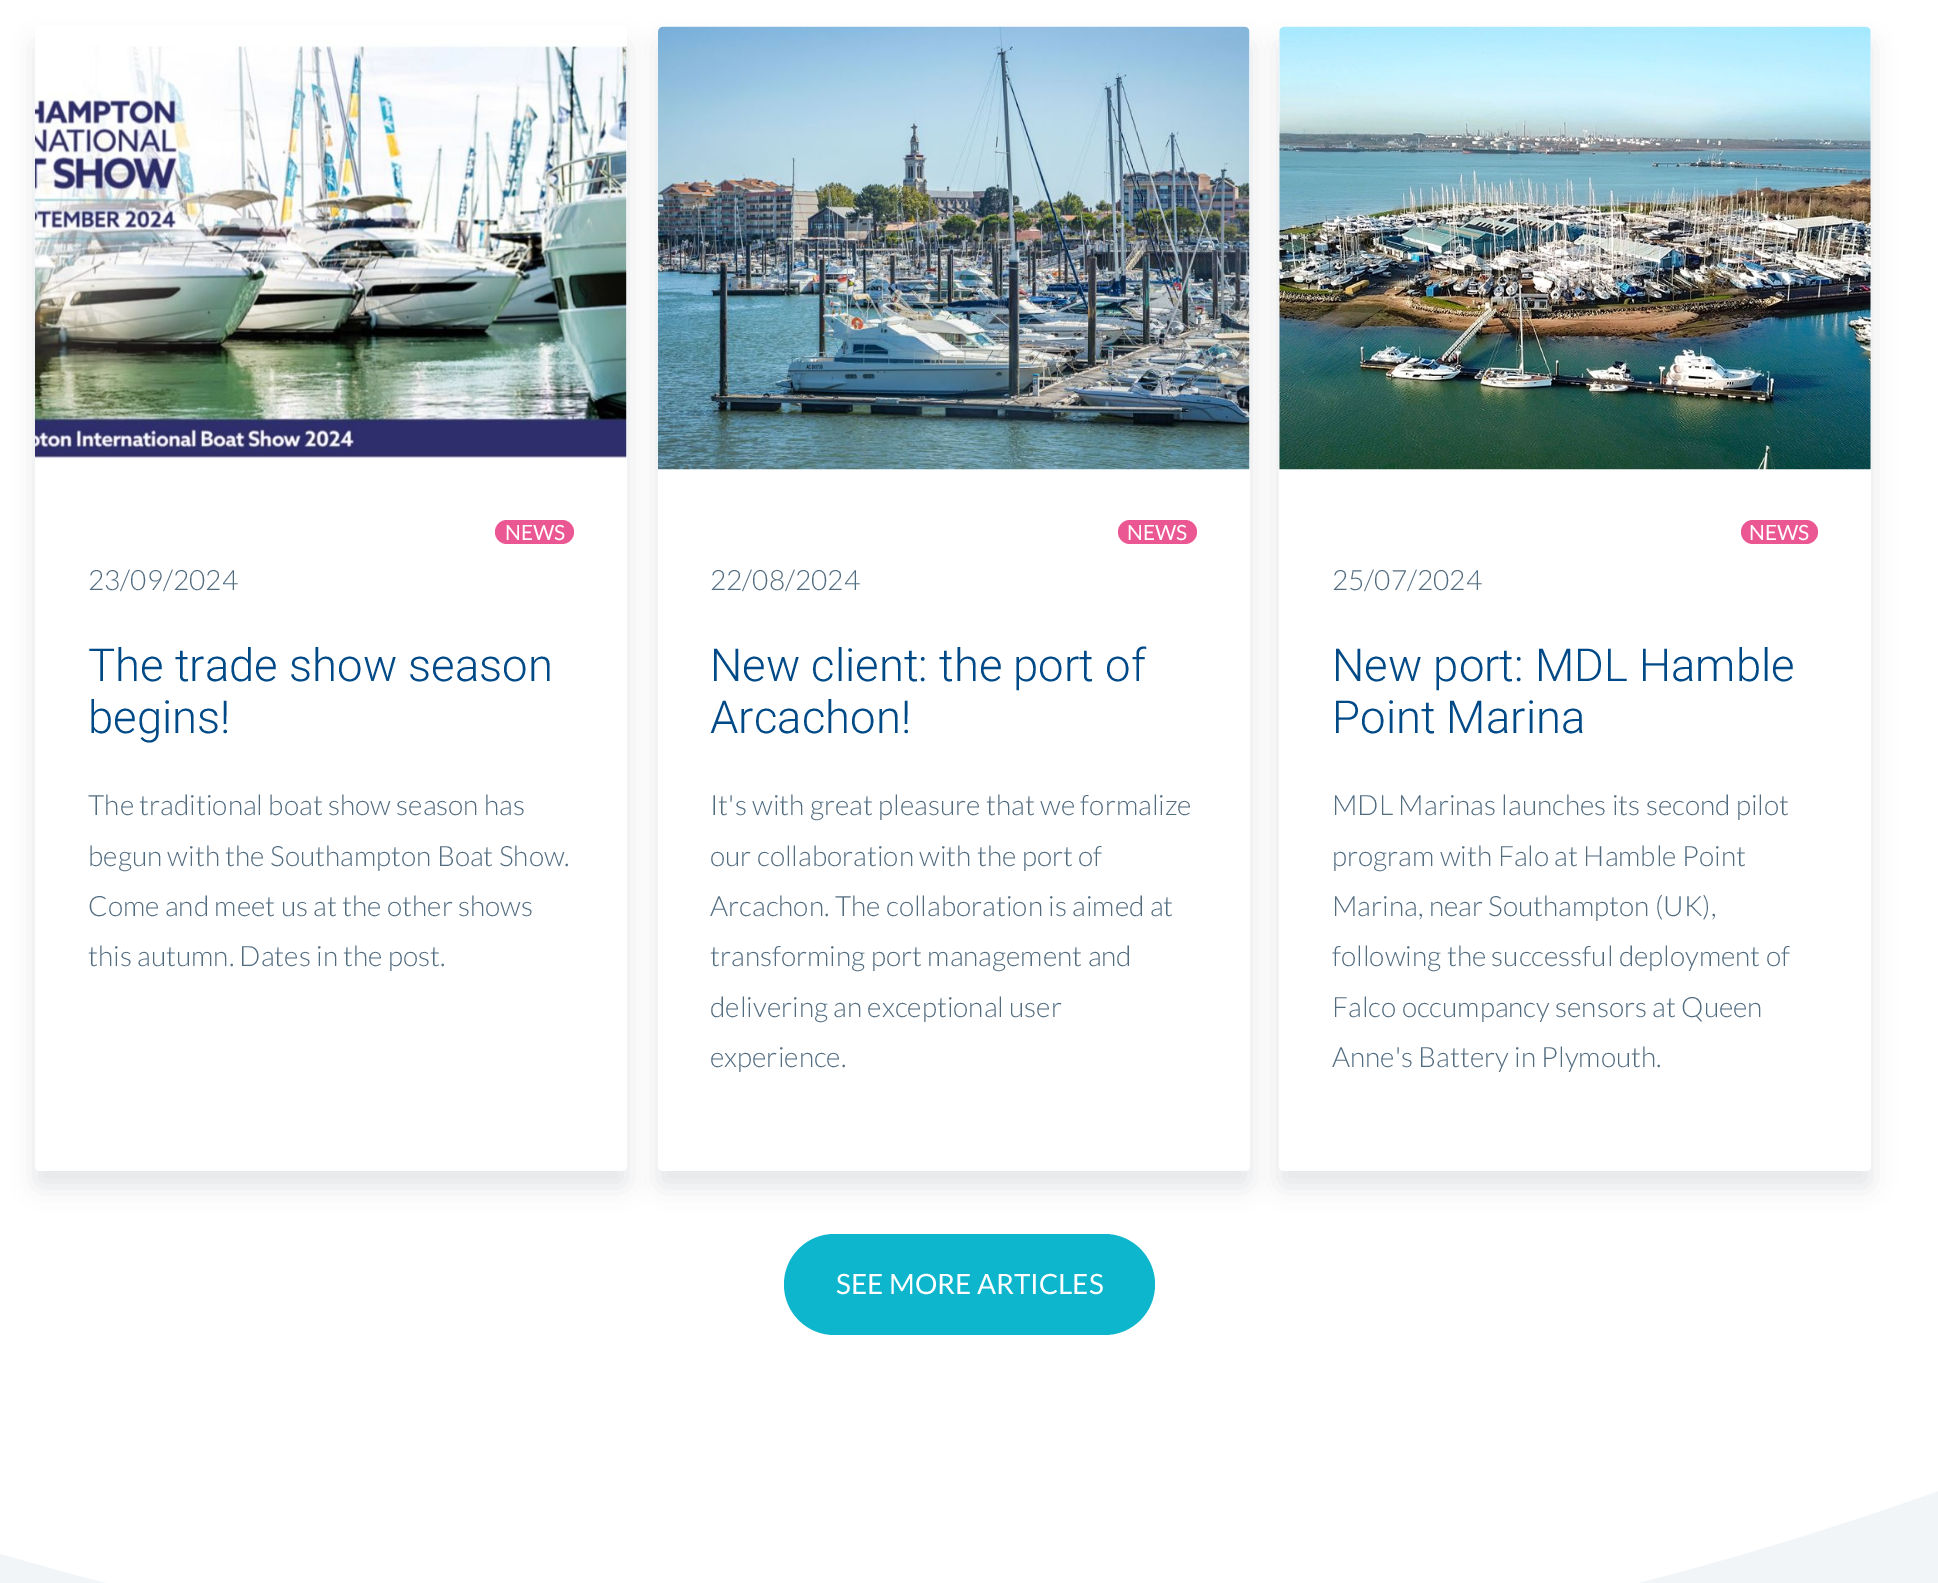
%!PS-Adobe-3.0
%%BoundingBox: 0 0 1938 1583
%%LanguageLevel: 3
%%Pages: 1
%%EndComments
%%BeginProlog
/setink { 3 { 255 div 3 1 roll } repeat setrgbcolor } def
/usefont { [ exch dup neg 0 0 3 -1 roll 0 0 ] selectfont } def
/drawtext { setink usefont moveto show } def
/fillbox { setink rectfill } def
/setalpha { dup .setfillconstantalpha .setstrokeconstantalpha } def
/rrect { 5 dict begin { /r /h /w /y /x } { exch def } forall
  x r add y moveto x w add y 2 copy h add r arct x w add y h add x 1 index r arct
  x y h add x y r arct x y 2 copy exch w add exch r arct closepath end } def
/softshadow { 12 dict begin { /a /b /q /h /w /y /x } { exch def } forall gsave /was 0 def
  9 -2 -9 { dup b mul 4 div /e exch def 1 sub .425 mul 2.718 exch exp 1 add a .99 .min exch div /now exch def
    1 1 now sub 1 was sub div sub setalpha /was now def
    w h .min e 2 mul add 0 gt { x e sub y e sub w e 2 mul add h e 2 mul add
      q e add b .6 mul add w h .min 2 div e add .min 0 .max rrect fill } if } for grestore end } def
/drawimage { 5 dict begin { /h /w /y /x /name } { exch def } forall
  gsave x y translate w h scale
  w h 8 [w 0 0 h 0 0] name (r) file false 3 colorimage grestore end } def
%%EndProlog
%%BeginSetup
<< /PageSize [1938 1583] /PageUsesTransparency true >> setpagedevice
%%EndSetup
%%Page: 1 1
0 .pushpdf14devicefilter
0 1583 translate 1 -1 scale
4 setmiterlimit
0 0 1938 1583 255 255 255 fillbox
46 69 80 setink
35 42 592 1145 5 12 0.13 softshadow
255 255 255 setink
35 26 592 1145 5 rrect fill
46 69 80 setink
658 42 592 1145 5 12 0.13 softshadow
(assets/img1.rgb) 35 40 592 419 drawimage
235 87 147 setink
495 520 79 24 12 rrect fill
(NEWS) 505 540 /Lato-Regular 21 255 255 255 drawtext
(23/09/2024) 88 590 /Lato-Light 28 81 107 127 drawtext
(The trade show season) 88 681 /Roboto-Light 45.5 0 73 135 drawtext
(begins!) 88 733 /Roboto-Light 45.5 0 73 135 drawtext
(The traditional boat show season has) 88 815 /Lato-Light 28 81 107 127 drawtext
(begun with the Southampton Boat Show.) 88 866 /Lato-Light 28 81 107 127 drawtext
(Come and meet us at the other shows) 88 916 /Lato-Light 28 81 107 127 drawtext
(this autumn. Dates in the post.) 88 966 /Lato-Light 28 81 107 127 drawtext
255 255 255 setink
658 26 592 1145 5 rrect fill
46 69 80 setink
1279 42 592 1145 5 12 0.13 softshadow
(assets/img2.rgb) 658 26 592 444 drawimage
235 87 147 setink
1118 520 79 24 12 rrect fill
(NEWS) 1127 540 /Lato-Regular 21 255 255 255 drawtext
(22/08/2024) 710 590 /Lato-Light 28 81 107 127 drawtext
(New client: the port of) 710 681 /Roboto-Light 45.5 0 73 135 drawtext
(Arcachon!) 710 733 /Roboto-Light 45.5 0 73 135 drawtext
(It's with great pleasure that we formalize) 710 815 /Lato-Light 28 81 107 127 drawtext
(our collaboration with the port of) 710 866 /Lato-Light 28 81 107 127 drawtext
(Arcachon. The collaboration is aimed at) 710 916 /Lato-Light 28 81 107 127 drawtext
(transforming port management and) 710 966 /Lato-Light 28 81 107 127 drawtext
(delivering an exceptional user) 710 1017 /Lato-Light 28 81 107 127 drawtext
(experience.) 710 1067 /Lato-Light 28 81 107 127 drawtext
255 255 255 setink
1279 26 592 1145 5 rrect fill
(assets/img3.rgb) 1279 26 592 444 drawimage
235 87 147 setink
1741 520 77 24 12 rrect fill
(NEWS) 1749 540 /Lato-Regular 21 255 255 255 drawtext
(25/07/2024) 1332 590 /Lato-Light 28 81 107 127 drawtext
(New port: MDL Hamble) 1332 681 /Roboto-Light 45.5 0 73 135 drawtext
(Point Marina) 1332 733 /Roboto-Light 45.5 0 73 135 drawtext
(MDL Marinas launches its second pilot) 1332 815 /Lato-Light 28 81 107 127 drawtext
(program with Falo at Hamble Point) 1332 866 /Lato-Light 28 81 107 127 drawtext
(Marina, near Southampton \(UK\),) 1332 916 /Lato-Light 28 81 107 127 drawtext
(following the successful deployment of) 1332 966 /Lato-Light 28 81 107 127 drawtext
(Falco occumpancy sensors at Queen) 1332 1017 /Lato-Light 28 81 107 127 drawtext
(Anne's Battery in Plymouth.) 1332 1067 /Lato-Light 28 81 107 127 drawtext
14 182 205 setink
784 1234 371 101 50.5 rrect fill
(SEE MORE ARTICLES) 836 1294 /Lato-Regular 28 255 255 255 drawtext
241 245 247 setink
-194 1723 moveto 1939 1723 lineto 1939 1491 lineto 1583 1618 1228 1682 872 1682 curveto 517 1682 161 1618 -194 1491 curveto closepath fill
.poppdf14devicefilter showpage
%%EOF
